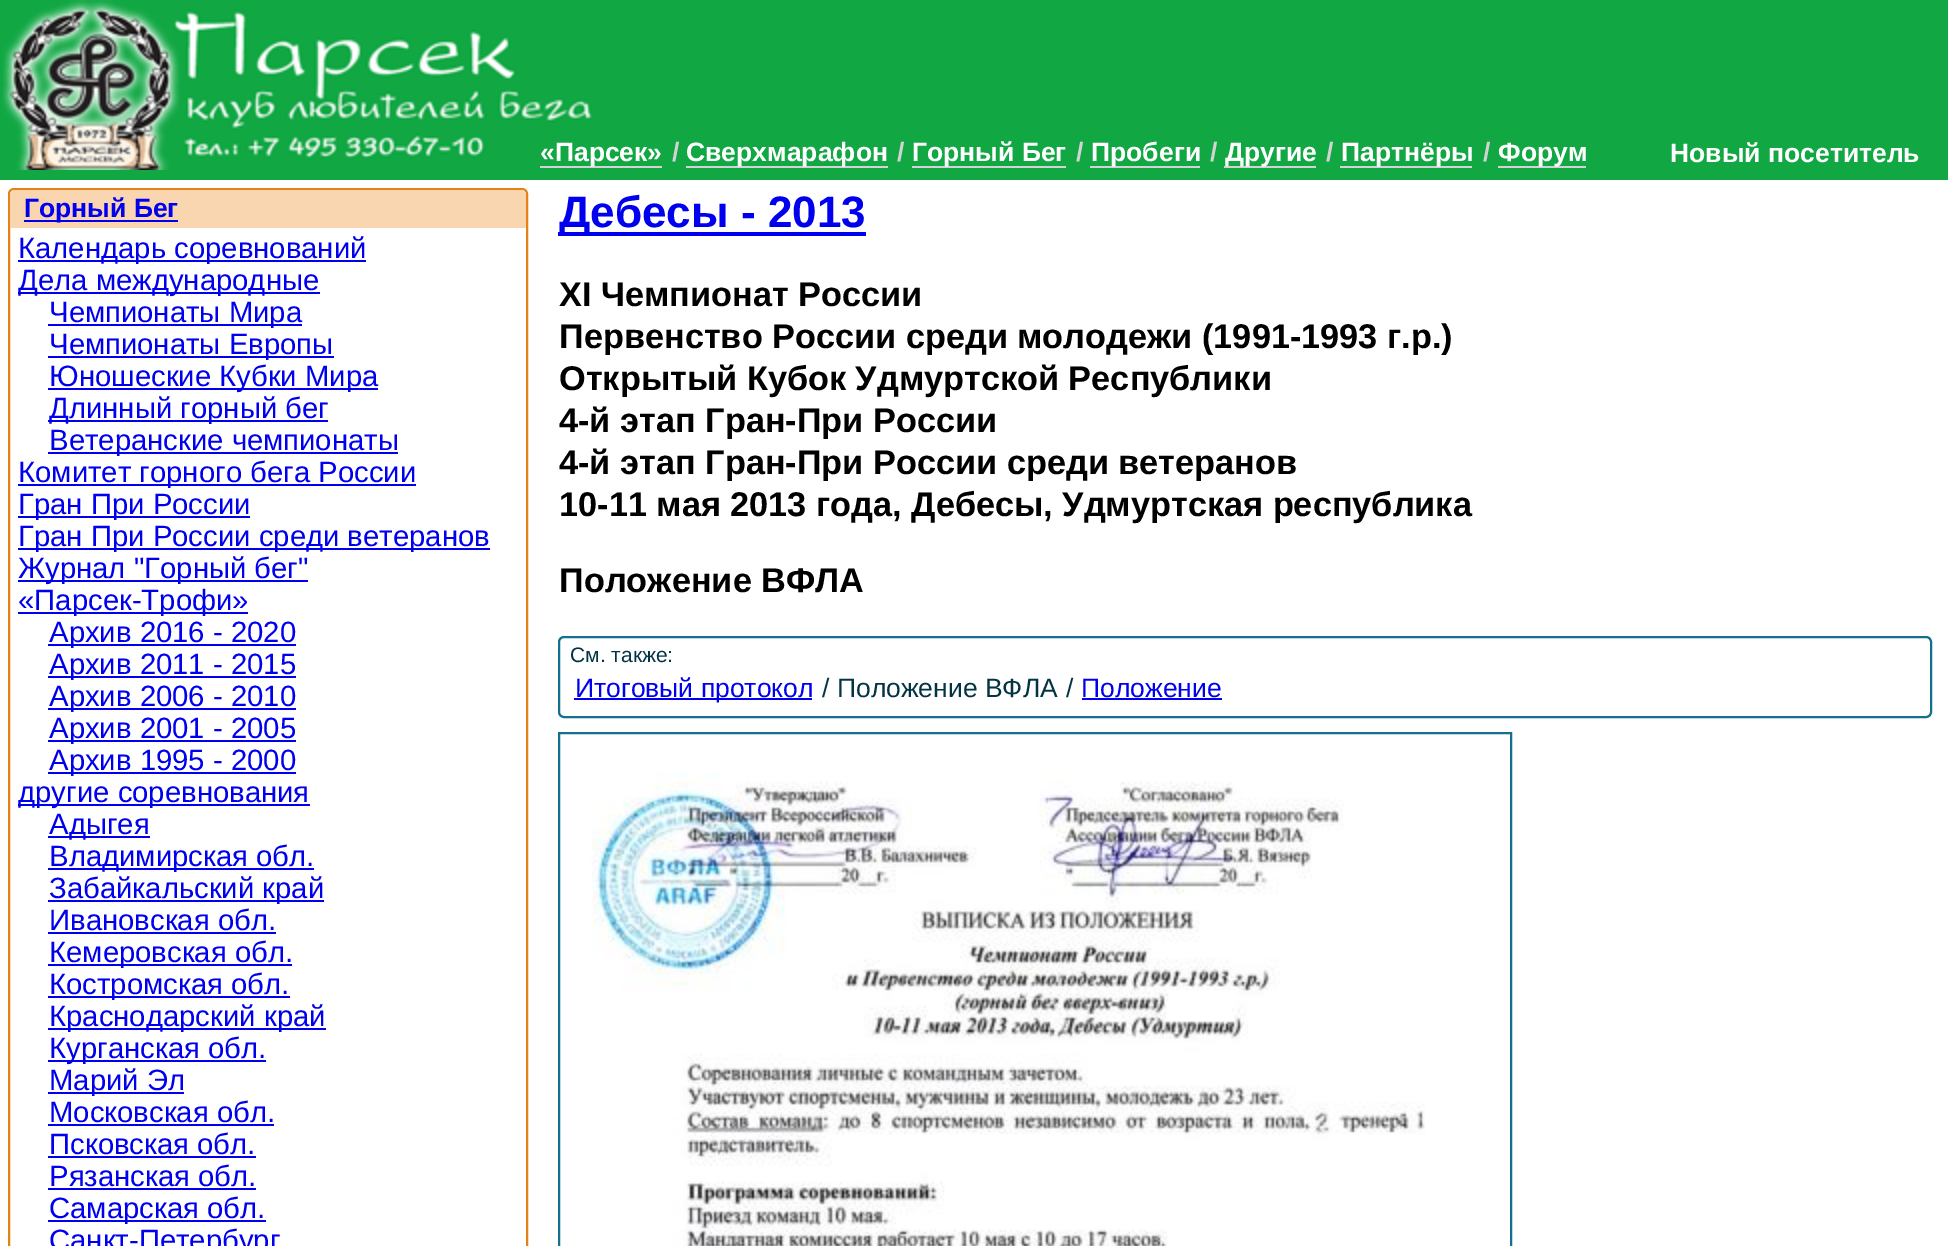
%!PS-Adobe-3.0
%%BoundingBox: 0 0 1948 1246
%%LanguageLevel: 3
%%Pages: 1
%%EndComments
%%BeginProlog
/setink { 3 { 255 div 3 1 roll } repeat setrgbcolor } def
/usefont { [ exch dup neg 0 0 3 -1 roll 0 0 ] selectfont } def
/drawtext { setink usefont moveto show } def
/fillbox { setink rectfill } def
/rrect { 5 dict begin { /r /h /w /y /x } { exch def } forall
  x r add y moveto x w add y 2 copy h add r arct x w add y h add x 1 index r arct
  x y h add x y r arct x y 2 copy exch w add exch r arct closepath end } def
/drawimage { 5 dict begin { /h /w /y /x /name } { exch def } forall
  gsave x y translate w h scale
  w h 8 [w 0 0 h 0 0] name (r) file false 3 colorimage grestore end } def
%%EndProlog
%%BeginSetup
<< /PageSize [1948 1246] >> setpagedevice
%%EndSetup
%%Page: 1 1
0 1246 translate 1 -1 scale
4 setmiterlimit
0 0 1948 1246 255 255 255 fillbox
0 0 1948 180 17 168 68 fillbox
(assets/img1.rgb) 2 0 590 170 drawimage
540 166 122 2 211 211 211 fillbox
(«Парсек») 540 161 /LiberationSans-Bold 26.5 255 255 255 drawtext
(/) 672 161 /LiberationSans-Bold 26.5 211 211 211 drawtext
686 166 202 2 211 211 211 fillbox
(Сверхмарафон) 686 161 /LiberationSans-Bold 26.5 255 255 255 drawtext
(/) 897 161 /LiberationSans-Bold 26.5 211 211 211 drawtext
912 166 154 2 211 211 211 fillbox
(Горный Бег) 912 161 /LiberationSans-Bold 26.5 255 255 255 drawtext
(/) 1076 161 /LiberationSans-Bold 26.5 211 211 211 drawtext
1090 166 110 2 211 211 211 fillbox
(Пробеги) 1091 161 /LiberationSans-Bold 26.5 255 255 255 drawtext
(/) 1210 161 /LiberationSans-Bold 26.5 211 211 211 drawtext
1224 166 92 2 211 211 211 fillbox
(Другие) 1225 161 /LiberationSans-Bold 26.5 255 255 255 drawtext
(/) 1326 161 /LiberationSans-Bold 26.5 211 211 211 drawtext
1340 166 132 2 211 211 211 fillbox
(Партнёры) 1341 161 /LiberationSans-Bold 26.5 255 255 255 drawtext
(/) 1483 161 /LiberationSans-Bold 26.5 211 211 211 drawtext
1498 166 88 2 211 211 211 fillbox
(Форум) 1498 161 /LiberationSans-Bold 26.5 255 255 255 drawtext
(Новый посетитель) 1670 162 /LiberationSans-Bold 26.5 255 255 255 drawtext
230 129 23 setink
2 setlinewidth
9 189 518 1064 5 rrect stroke
249 213 176 setink
14 190 moveto 522 190 lineto 524 190 526 192 526 194 curveto 526 228 lineto 10 228 lineto 10 194 lineto 10 192 12 190 14 190 curveto closepath fill
24 220 154 2 0 0 238 fillbox
(Горный Бег) 24 217 /LiberationSans-Bold 26.5 0 0 238 drawtext
18 260 348 2 0 0 238 fillbox
(Календарь соревнований) 18 258 /LiberationSans-Regular 29.3 0 0 238 drawtext
18 292 302 2 0 0 238 fillbox
(Дела международные) 18 290 /LiberationSans-Regular 29.3 0 0 238 drawtext
48 324 254 2 0 0 238 fillbox
(Чемпионаты Мира) 49 322 /LiberationSans-Regular 29.3 0 0 238 drawtext
48 356 286 2 0 0 238 fillbox
(Чемпионаты Европы) 49 354 /LiberationSans-Regular 29.3 0 0 238 drawtext
48 388 330 2 0 0 238 fillbox
(Юношеские Кубки Мира) 49 386 /LiberationSans-Regular 29.3 0 0 238 drawtext
48 420 280 2 0 0 238 fillbox
(Длинный горный бег) 49 418 /LiberationSans-Regular 29.3 0 0 238 drawtext
48 452 350 2 0 0 238 fillbox
(Ветеранские чемпионаты) 49 450 /LiberationSans-Regular 29.3 0 0 238 drawtext
18 484 398 2 0 0 238 fillbox
(Комитет горного бега России) 18 482 /LiberationSans-Regular 29.3 0 0 238 drawtext
18 516 232 2 0 0 238 fillbox
(Гран При России) 18 514 /LiberationSans-Regular 29.3 0 0 238 drawtext
18 548 472 2 0 0 238 fillbox
(Гран При России среди ветеранов) 18 546 /LiberationSans-Regular 29.3 0 0 238 drawtext
18 580 290 2 0 0 238 fillbox
(Журнал "Горный бег") 18 578 /LiberationSans-Regular 29.3 0 0 238 drawtext
18 612 230 2 0 0 238 fillbox
(«Парсек-Трофи») 18 610 /LiberationSans-Regular 29.3 0 0 238 drawtext
48 644 248 2 0 0 238 fillbox
(Архив 2016 - 2020) 49 642 /LiberationSans-Regular 29.3 0 0 238 drawtext
48 676 248 2 0 0 238 fillbox
(Архив 2011 - 2015) 49 674 /LiberationSans-Regular 29.3 0 0 238 drawtext
48 708 248 2 0 0 238 fillbox
(Архив 2006 - 2010) 49 706 /LiberationSans-Regular 29.3 0 0 238 drawtext
48 740 248 2 0 0 238 fillbox
(Архив 2001 - 2005) 49 738 /LiberationSans-Regular 29.3 0 0 238 drawtext
48 772 248 2 0 0 238 fillbox
(Архив 1995 - 2000) 49 770 /LiberationSans-Regular 29.3 0 0 238 drawtext
18 804 292 2 0 0 238 fillbox
(другие соревнования) 18 802 /LiberationSans-Regular 29.3 0 0 238 drawtext
48 836 102 2 0 0 238 fillbox
(Адыгея) 49 834 /LiberationSans-Regular 29.3 0 0 238 drawtext
48 868 266 2 0 0 238 fillbox
(Владимирская обл.) 49 866 /LiberationSans-Regular 29.3 0 0 238 drawtext
48 900 276 2 0 0 238 fillbox
(Забайкальский край) 49 898 /LiberationSans-Regular 29.3 0 0 238 drawtext
(Ивановская обл.) 49 930 /LiberationSans-Regular 29.3 0 0 238 drawtext
48 932 228 2 0 0 238 fillbox
48 964 244 2 0 0 238 fillbox
(Кемеровская обл.) 49 962 /LiberationSans-Regular 29.3 0 0 238 drawtext
48 996 242 2 0 0 238 fillbox
(Костромская обл.) 49 994 /LiberationSans-Regular 29.3 0 0 238 drawtext
48 1028 278 2 0 0 238 fillbox
(Краснодарский край) 49 1026 /LiberationSans-Regular 29.3 0 0 238 drawtext
48 1060 218 2 0 0 238 fillbox
(Курганcкая обл.) 49 1058 /LiberationSans-Regular 29.3 0 0 238 drawtext
48 1092 136 2 0 0 238 fillbox
(Марий Эл) 49 1090 /LiberationSans-Regular 29.3 0 0 238 drawtext
(Московская обл.) 49 1122 /LiberationSans-Regular 29.3 0 0 238 drawtext
48 1124 226 2 0 0 238 fillbox
(Псковская обл.) 49 1154 /LiberationSans-Regular 29.3 0 0 238 drawtext
48 1156 208 2 0 0 238 fillbox
(Рязанская обл.) 49 1186 /LiberationSans-Regular 29.3 0 0 238 drawtext
48 1188 208 2 0 0 238 fillbox
48 1220 218 2 0 0 238 fillbox
(Самарская обл.) 49 1218 /LiberationSans-Regular 29.3 0 0 238 drawtext
(Санкт-Петербург) 49 1250 /LiberationSans-Regular 29.3 0 0 238 drawtext
558 232 308 4 0 0 238 fillbox
(Дебесы - 2013) 559 227 /LiberationSans-Bold 44 0 0 238 drawtext
(XI Чемпионат России) 559 306 /LiberationSans-Bold 34.3 0 0 0 drawtext
(Первенство России среди молодежи \(1991-1993 г.р.\)) 559 348 /LiberationSans-Bold 34.3 0 0 0 drawtext
(Открытый Кубок Удмуртской Республики) 559 390 /LiberationSans-Bold 34.3 0 0 0 drawtext
(4-й этап Гран-При России) 559 432 /LiberationSans-Bold 34.3 0 0 0 drawtext
(4-й этап Гран-При России среди ветеранов) 559 474 /LiberationSans-Bold 34.3 0 0 0 drawtext
(10-11 мая 2013 года, Дебесы, Удмуртская республика) 559 516 /LiberationSans-Bold 34.3 0 0 0 drawtext
(Положение ВФЛА) 559 592 /LiberationSans-Bold 34.3 0 0 0 drawtext
19 112 143 setink
559 637 1372 80 5 rrect stroke
(См. также:) 570 662 /LiberationSans-Regular 21 2 52 68 drawtext
574 698 238 2 0 0 238 fillbox
(Итоговый протокол) 575 697 /LiberationSans-Regular 26.5 0 0 238 drawtext
(/ Положение ВФЛА) 822 697 /LiberationSans-Regular 26.5 2 52 68 drawtext
(/) 1066 697 /LiberationSans-Regular 26.5 2 52 68 drawtext
(Положение) 1081 697 /LiberationSans-Regular 26.5 0 0 238 drawtext
1082 698 140 2 0 0 238 fillbox
19 112 143 setink
559 733 952 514 rectstroke
(assets/img2.rgb) 591 772 834 474 drawimage
showpage
%%EOF
